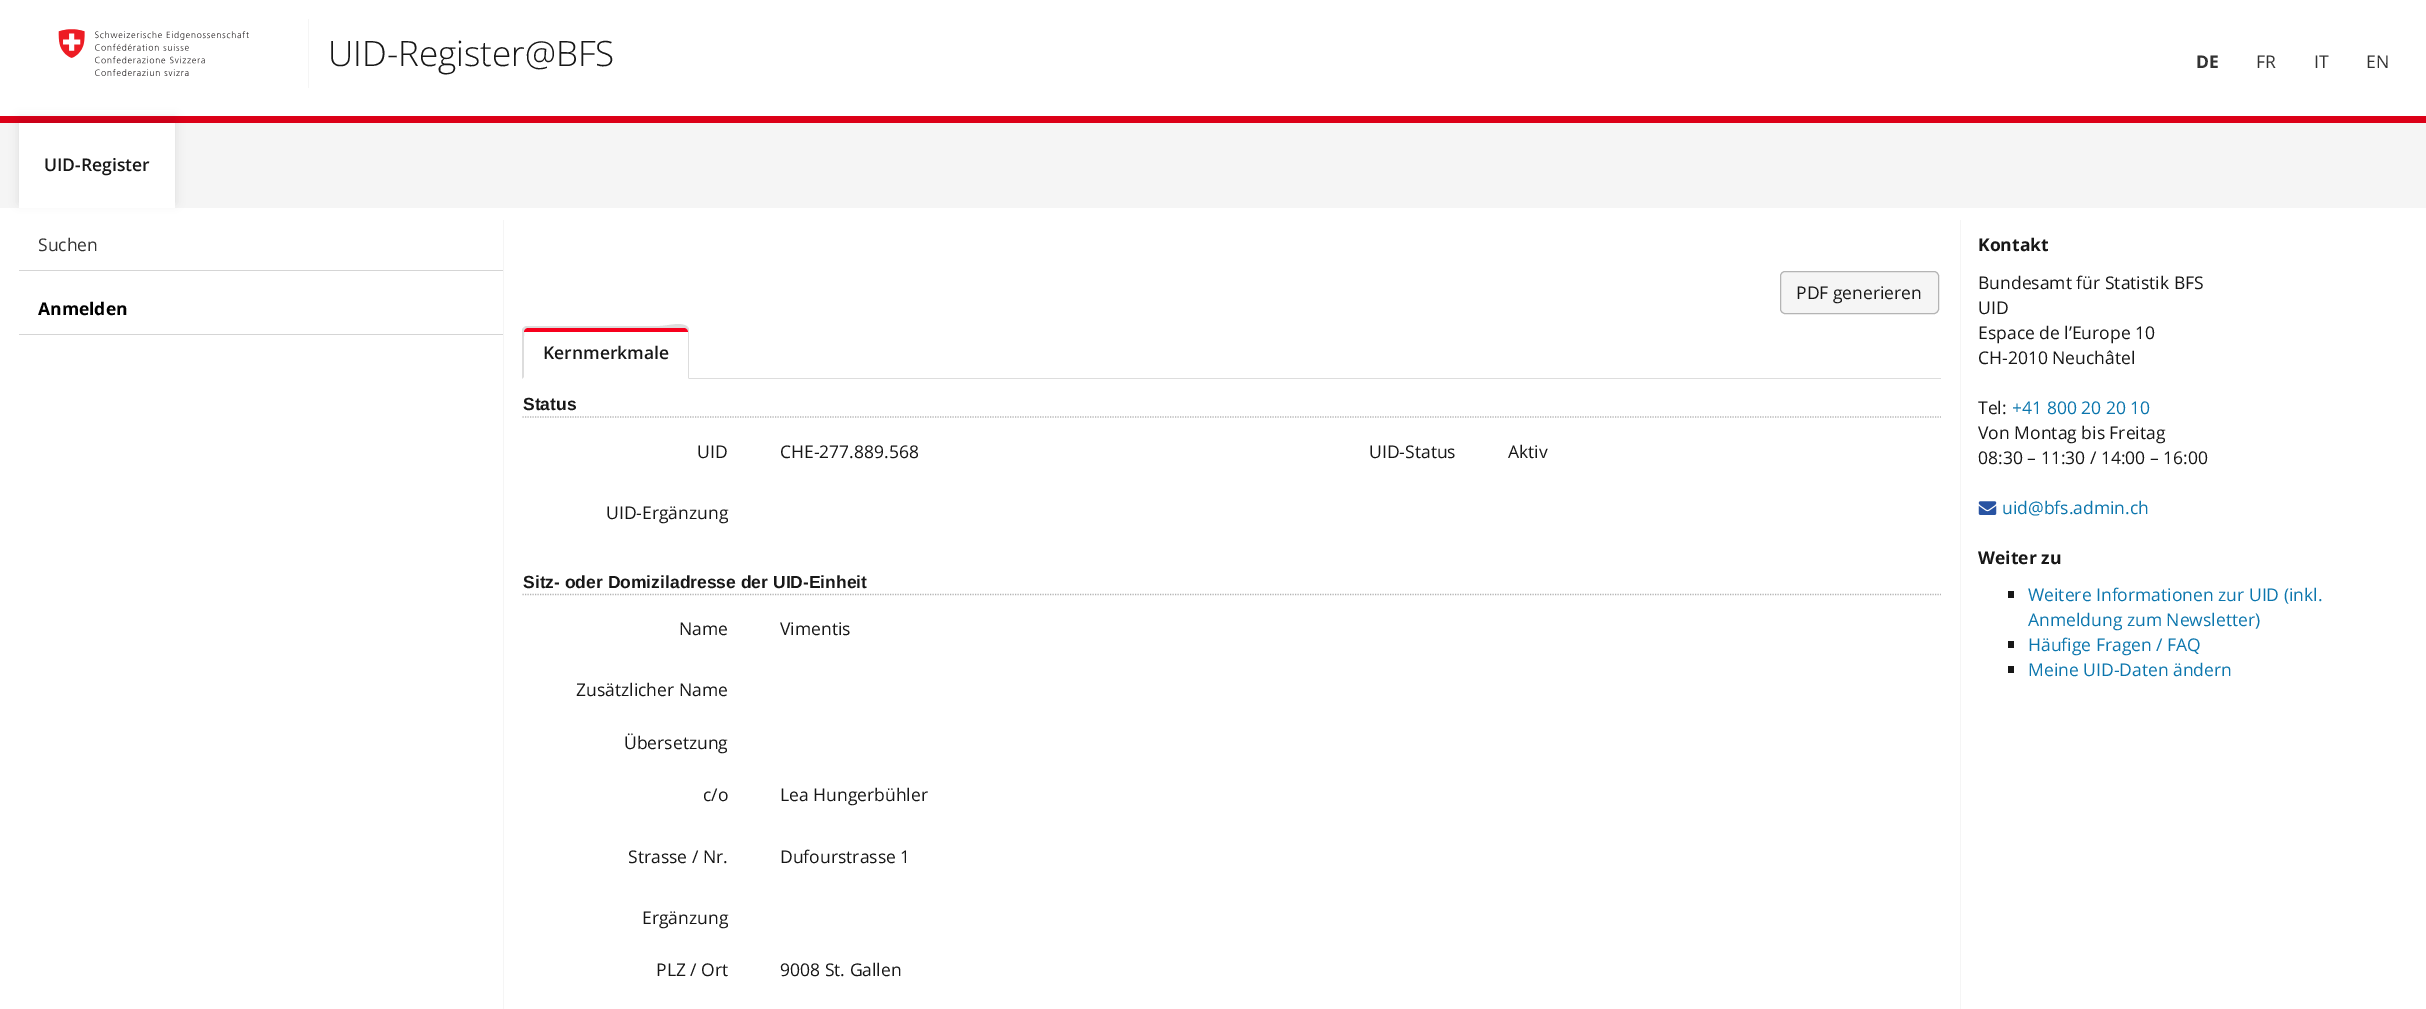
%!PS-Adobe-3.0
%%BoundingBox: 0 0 2426 1009
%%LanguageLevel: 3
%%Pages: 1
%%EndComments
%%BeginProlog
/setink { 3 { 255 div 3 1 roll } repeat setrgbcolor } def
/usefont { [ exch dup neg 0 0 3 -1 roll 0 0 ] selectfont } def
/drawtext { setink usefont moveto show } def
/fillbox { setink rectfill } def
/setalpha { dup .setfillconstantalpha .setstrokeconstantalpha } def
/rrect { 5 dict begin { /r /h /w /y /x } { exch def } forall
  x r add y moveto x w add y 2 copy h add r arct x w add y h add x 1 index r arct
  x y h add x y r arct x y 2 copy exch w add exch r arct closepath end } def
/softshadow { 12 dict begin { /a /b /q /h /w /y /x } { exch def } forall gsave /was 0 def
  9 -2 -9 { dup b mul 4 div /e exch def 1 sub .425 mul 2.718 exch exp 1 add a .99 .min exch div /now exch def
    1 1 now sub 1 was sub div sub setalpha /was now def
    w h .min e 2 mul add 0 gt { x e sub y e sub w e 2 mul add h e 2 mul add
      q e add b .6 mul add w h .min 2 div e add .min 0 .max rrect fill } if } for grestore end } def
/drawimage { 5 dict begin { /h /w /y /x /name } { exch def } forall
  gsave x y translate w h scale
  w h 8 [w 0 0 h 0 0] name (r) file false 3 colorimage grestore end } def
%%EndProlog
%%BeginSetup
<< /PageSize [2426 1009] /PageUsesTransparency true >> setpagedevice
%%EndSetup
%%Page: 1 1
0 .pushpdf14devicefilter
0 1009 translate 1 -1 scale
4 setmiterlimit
0 0 2426 1009 255 255 255 fillbox
0 116 2426 7 220 0 24 fillbox
(assets/img1.rgb) 58 29 191 47 drawimage
308 19 1 69 245 245 245 fillbox
(UID-Register@BFS) 328 66 /OpenSans-Light 35 23 23 23 drawtext
(DE) 2196 68 /OpenSans-Bold 17.5 51 51 51 drawtext
(FR) 2256 68 /OpenSans-Regular 17.5 51 51 51 drawtext
(IT) 2314 68 /OpenSans-Regular 17.5 51 51 51 drawtext
(EN) 2366 68 /OpenSans-Regular 17.5 51 51 51 drawtext
0 123 2426 85 245 245 245 fillbox
0 0 0 setink
19 118 156 85 0 5 0.1 softshadow
19 123 156 85 255 255 255 fillbox
(UID-Register) 44 171 /OpenSans-SemiBold 17.5 23 23 23 drawtext
19 270 485 1 213 213 213 fillbox
(Suchen) 38 251 /OpenSans-Regular 17.5 51 51 51 drawtext
19 334 485 1 213 213 213 fillbox
(Anmelden) 38 315 /OpenSans-Bold 17.5 0 0 0 drawtext
503 220 1 789 245 245 245 fillbox
1780.5 271.5 158 42 4.5 rrect gsave fill grestore
180 180 180 setink
stroke
(PDF generieren) 1796 299 /OpenSans-Regular 17.5 23 23 23 drawtext
689 378 1252 1 221 221 221 fillbox
528 328 moveto 525 329 lineto 524 327 lineto 526 326 lineto 659 326 lineto 669 326 681 321 688 327 curveto 686 329 lineto 684 328 lineto closepath fill
688 327 moveto 689 329 lineto 689 379 lineto 688 378 lineto 688 330 lineto 686 329 lineto closepath fill
522 379 moveto 522 329 lineto 524 327 lineto 525 329 lineto 523 330 524 372 524 377 curveto closepath fill
247 0 29 setink
528 328 moveto 684 328 lineto 686 328 688 330 688 332 curveto 524 332 lineto 524 330 526 328 528 328 curveto closepath fill
(Kernmerkmale) 543 359 /OpenSans-SemiBold 17.5 23 23 23 drawtext
180 180 180 setink
1.2 setlinewidth
[1.25 1.25] 0 setdash
522.5 417 moveto 1941 417 lineto stroke
(Status) 523 410 /LiberationSans-Bold 17.5 23 23 23 drawtext
(UID) 697 458 /OpenSans-Regular 17.5 23 23 23 drawtext
(CHE-277.889.568) 780 458 /OpenSans-Regular 17.5 23 23 23 drawtext
(UID-Status) 1369 458 /OpenSans-Regular 17.5 23 23 23 drawtext
(Aktiv) 1508 458 /OpenSans-Regular 17.5 23 23 23 drawtext
(UID-Ergänzung) 606 519 /OpenSans-Regular 17.5 23 23 23 drawtext
180 180 180 setink
522.5 594.5 moveto 1941 594.5 lineto stroke
(Sitz- oder Domiziladresse der UID-Einheit) 523 588 /LiberationSans-Bold 17.5 23 23 23 drawtext
(Name) 679 635 /OpenSans-Regular 17.5 23 23 23 drawtext
(Vimentis) 780 635 /OpenSans-Regular 17.5 23 23 23 drawtext
(Zusätzlicher Name) 576 696 /OpenSans-Regular 17.5 23 23 23 drawtext
(Übersetzung) 624 749 /OpenSans-Regular 17.5 23 23 23 drawtext
(c/o) 703 801 /OpenSans-Regular 17.5 23 23 23 drawtext
(Lea Hungerbühler) 780 801 /OpenSans-Regular 17.5 23 23 23 drawtext
(Strasse / Nr.) 628 863 /OpenSans-Regular 17.5 23 23 23 drawtext
(Dufourstrasse 1) 780 863 /OpenSans-Regular 17.5 23 23 23 drawtext
(Ergänzung) 642 924 /OpenSans-Regular 17.5 23 23 23 drawtext
(PLZ / Ort) 656 976 /OpenSans-Regular 17.5 23 23 23 drawtext
(9008 St. Gallen) 780 976 /OpenSans-Regular 17.5 23 23 23 drawtext
1960 220 1 789 245 245 245 fillbox
(Kontakt) 1978 251 /OpenSans-Bold 17.5 23 23 23 drawtext
(Bundesamt für Statistik BFS) 1978 289 /OpenSans-Regular 17.5 23 23 23 drawtext
(UID) 1978 314 /OpenSans-Regular 17.5 23 23 23 drawtext
(Espace de l’Europe 10) 1978 339 /OpenSans-Regular 17.5 23 23 23 drawtext
(CH-2010 Neuchâtel) 1978 364 /OpenSans-Regular 17.5 23 23 23 drawtext
(Tel:) 1978 414 /OpenSans-Regular 17.5 23 23 23 drawtext
(+41 800 20 20 10) 2012 414 /OpenSans-Regular 17.5 12 118 173 drawtext
(Von Montag bis Freitag) 1978 439 /OpenSans-Regular 17.5 23 23 23 drawtext
(08:30 – 11:30 / 14:00 – 16:00) 1978 464 /OpenSans-Regular 17.5 23 23 23 drawtext
(assets/img2.rgb) 1978 501 19 14 drawimage
(uid@bfs.admin.ch) 2002 514 /OpenSans-Regular 17.5 12 118 173 drawtext
(Weiter zu) 1978 564 /OpenSans-Bold 17.5 23 23 23 drawtext
2008 591 6 7 23 23 23 fillbox
(Weitere Informationen zur UID \(inkl.) 2028 601 /OpenSans-Regular 17.5 12 118 173 drawtext
(Anmeldung zum Newsletter\)) 2028 626 /OpenSans-Regular 17.5 12 118 173 drawtext
2008 641 6 7 23 23 23 fillbox
(Häufige Fragen / FAQ) 2028 651 /OpenSans-Regular 17.5 12 118 173 drawtext
2008 666 6 7 23 23 23 fillbox
(Meine UID-Daten ändern) 2028 676 /OpenSans-Regular 17.5 12 118 173 drawtext
.poppdf14devicefilter showpage
%%EOF
